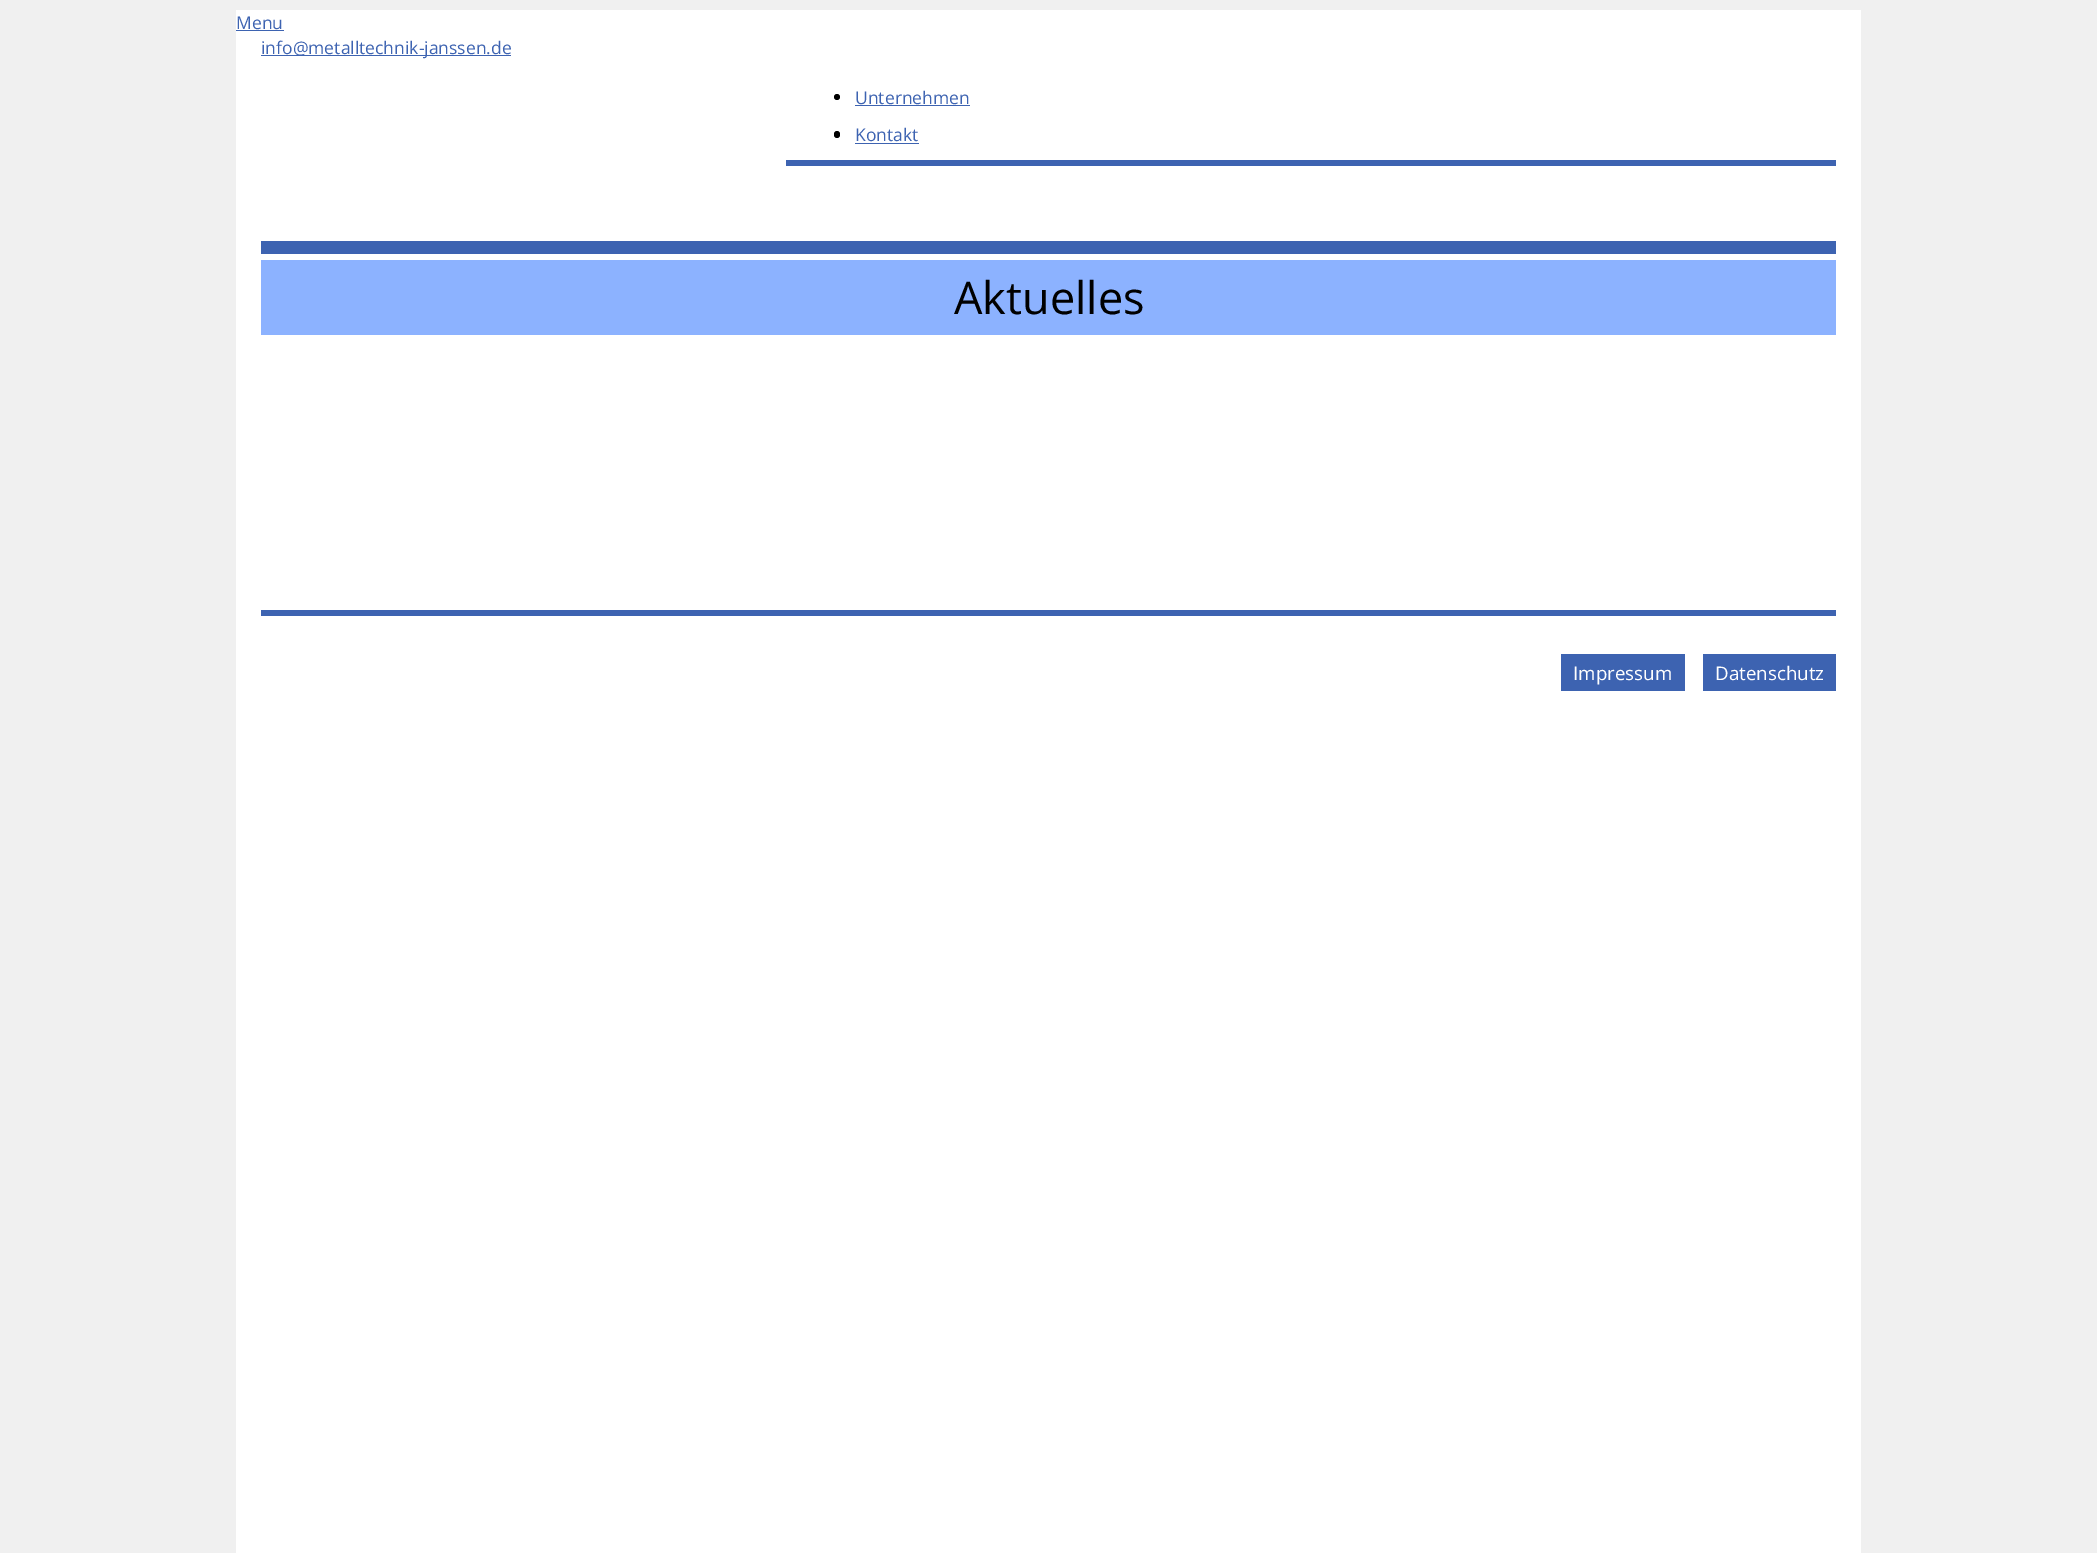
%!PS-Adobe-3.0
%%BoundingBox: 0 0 2097 1553
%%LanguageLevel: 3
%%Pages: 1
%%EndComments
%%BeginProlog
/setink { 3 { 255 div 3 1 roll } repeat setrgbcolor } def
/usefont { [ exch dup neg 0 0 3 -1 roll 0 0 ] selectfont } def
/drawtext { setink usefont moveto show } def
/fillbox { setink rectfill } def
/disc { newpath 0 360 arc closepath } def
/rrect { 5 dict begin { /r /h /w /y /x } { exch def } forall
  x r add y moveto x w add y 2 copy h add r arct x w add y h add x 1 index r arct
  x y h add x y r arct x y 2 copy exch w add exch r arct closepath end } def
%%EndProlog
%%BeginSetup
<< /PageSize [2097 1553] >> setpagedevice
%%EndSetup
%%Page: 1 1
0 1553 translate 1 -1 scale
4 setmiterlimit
0 0 2097 1553 240 240 240 fillbox
236 10 1625 1543 255 255 255 fillbox
(Menu) 236 29 /OpenSans-Regular 17.5 61 99 177 drawtext
236 30 48 1 61 99 177 fillbox
261 55 250 1 61 99 177 fillbox
(info@metalltechnik-janssen.de) 261 54 /OpenSans-Regular 17.5 61 99 177 drawtext
786 160 1050 6 61 99 177 fillbox
0 0 0 setink
837 97 3 disc fill
(Unternehmen) 855 104 /OpenSans-Regular 17.5 61 99 177 drawtext
855 105 115 1 61 99 177 fillbox
0 0 0 setink
834 131 6 7 3 rrect fill
(Kontakt) 855 141 /OpenSans-Regular 17.5 61 99 177 drawtext
855 143 64 1 61 99 177 fillbox
261 241 1575 13 61 99 177 fillbox
261 260 1575 75 140 178 255 fillbox
(Aktuelles) 954 314 /OpenSans-Regular 45 0 0 0 drawtext
261 610 1575 6 61 99 177 fillbox
1561 654 124 37 61 99 177 fillbox
(Impressum) 1573 680 /OpenSans-Regular 18.75 255 255 255 drawtext
1703 654 133 37 61 99 177 fillbox
(Datenschutz) 1715 680 /OpenSans-Regular 18.75 255 255 255 drawtext
showpage
%%EOF
